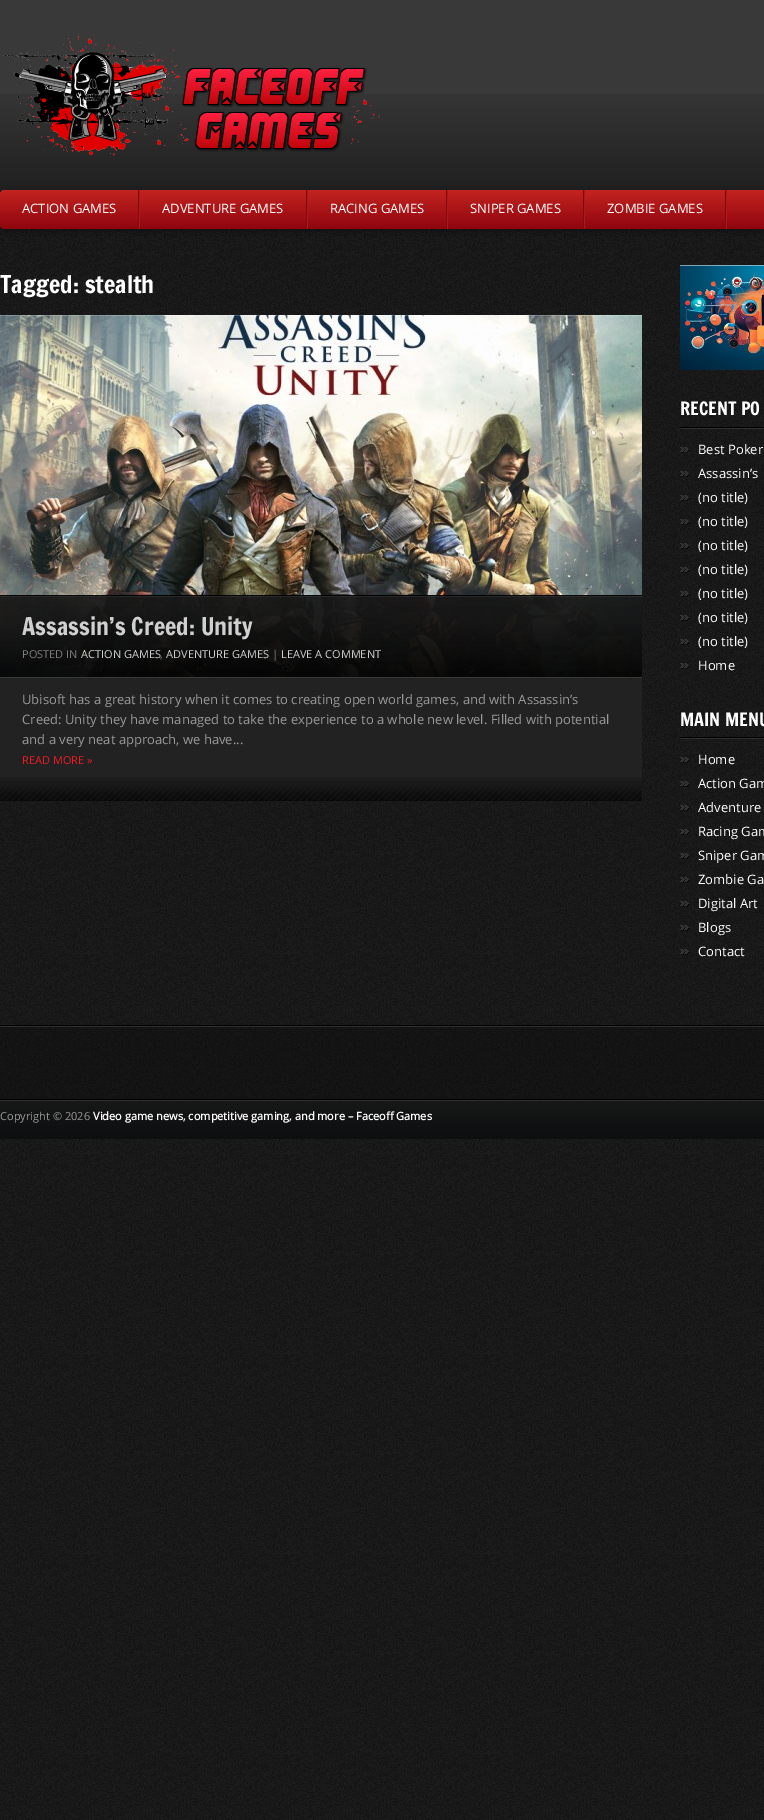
%!PS-Adobe-3.0
%%BoundingBox: 0 0 764 1820
%%LanguageLevel: 3
%%Pages: 1
%%EndComments
%%BeginProlog
/setink { 3 { 255 div 3 1 roll } repeat setrgbcolor } def
/usefont { [ exch dup neg 0 0 3 -1 roll 0 0 ] selectfont } def
/drawtext { setink usefont moveto show } def
/fillbox { setink rectfill } def
/setalpha { dup .setfillconstantalpha .setstrokeconstantalpha } def
/rrect { 5 dict begin { /r /h /w /y /x } { exch def } forall
  x r add y moveto x w add y 2 copy h add r arct x w add y h add x 1 index r arct
  x y h add x y r arct x y 2 copy exch w add exch r arct closepath end } def
/softshadow { 12 dict begin { /a /b /q /h /w /y /x } { exch def } forall gsave /was 0 def
  9 -2 -9 { dup b mul 4 div /e exch def 1 sub .425 mul 2.718 exch exp 1 add a .99 .min exch div /now exch def
    1 1 now sub 1 was sub div sub setalpha /was now def
    w h .min e 2 mul add 0 gt { x e sub y e sub w e 2 mul add h e 2 mul add
      q e add b .6 mul add w h .min 2 div e add .min 0 .max rrect fill } if } for grestore end } def
/drawimage { 5 dict begin { /h /w /y /x /name } { exch def } forall
  gsave x y translate w h scale
  w h 8 [w 0 0 h 0 0] name (r) file false 3 colorimage grestore end } def
%%EndProlog
%%BeginSetup
<< /PageSize [764 1820] /PageUsesTransparency true >> setpagedevice
%%EndSetup
%%Page: 1 1
0 .pushpdf14devicefilter
0 1820 translate 1 -1 scale
4 setmiterlimit
0 0 764 1820 255 255 255 fillbox
(assets/img1.rgb) 0 223 764 1597 drawimage
0 0 764 94 57 57 57 fillbox
(assets/img2.rgb) 0 94 764 102 drawimage
(assets/img3.rgb) 3 36 377 120 drawimage
0 0 0 setink
0 192 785 39 6 5 0.35 softshadow
gsave 0 190 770 39 6 rrect clip newpath
<< /ShadingType 2 /ColorSpace /DeviceRGB /Coords [490 190 490 229] /Extend [true true] /Function << /FunctionType 2 /Domain [0 1] /C0 [0.765 0.141 0.125] /C1 [0.561 0.02 0.055] /N 1 >> >> shfill grestore
138 190 1 39 123 13 15 fillbox
(ACTION GAMES) 22 213 /OpenSans-Regular 13 255 255 255 drawtext
306 190 1 39 123 13 15 fillbox
177 23 25 setink
139 229 moveto 139 190 lineto 140 190 lineto 140 228 lineto closepath fill
(ADVENTURE GAMES) 162 213 /OpenSans-Regular 13 255 255 255 drawtext
446 190 1 39 123 13 15 fillbox
177 23 25 setink
307 229 moveto 307 190 lineto 308 190 lineto 308 228 lineto closepath fill
(RACING GAMES) 330 213 /OpenSans-Regular 13 255 255 255 drawtext
583 190 1 39 123 13 15 fillbox
177 23 25 setink
447 229 moveto 447 190 lineto 448 190 lineto 448 228 lineto closepath fill
(SNIPER GAMES) 470 213 /OpenSans-Regular 13 255 255 255 drawtext
726 190 1 39 177 23 25 fillbox
123 13 15 setink
726 190 moveto 726 229 lineto 725 228 lineto 725 190 lineto closepath fill
177 23 25 setink
584 229 moveto 584 190 lineto 585 190 lineto 585 228 lineto closepath fill
(ZOMBIE GAMES) 607 213 /OpenSans-Regular 13 255 255 255 drawtext
(assets/img4.rgb) 0 1025 764 2 drawimage
(Tagged: stealth) 0 293 /FrancoisOne-Regular 24 255 255 255 drawtext
(assets/img5.rgb) 0 315 642 362 drawimage
0.2 setalpha
0 315 642 1 255 255 255 fillbox
1 setalpha
(assets/img6.rgb) 0 595 642 82 drawimage
(Assassin’s Creed: Unity) 22 635 /FrancoisOne-Regular 24 208 208 208 drawtext
(POSTED IN) 22 658 /OpenSans-Regular 11 125 125 125 drawtext
(ACTION GAMES) 81 658 /OpenSans-Regular 11 208 208 208 drawtext
(,) 160 658 /OpenSans-Regular 11 125 125 125 drawtext
(ADVENTURE GAMES) 166 658 /OpenSans-Regular 11 208 208 208 drawtext
(|) 272 658 /OpenSans-Regular 11 125 125 125 drawtext
(LEAVE A COMMENT) 281 658 /OpenSans-Regular 11 208 208 208 drawtext
0 678 642 99 34 34 34 fillbox
(assets/img7.rgb) 0 777 642 24 drawimage
0 677 642 1 57 57 57 fillbox
(Ubisoft has a great history when it comes to creating open world games, and with Assassin’s) 22 704 /OpenSans-Regular 13 153 153 153 drawtext
(Creed: Unity they have managed to take the experience to a whole new level. Filled with potential) 22 724 /OpenSans-Regular 13 153 153 153 drawtext
(and a very neat approach, we have...) 22 744 /OpenSans-Regular 13 153 153 153 drawtext
(READ MORE ») 22 764 /OpenSans-Regular 11 237 28 36 drawtext
(assets/img8.rgb) 680 265 84 105 drawimage
(assets/img9.rgb) 680 427 84 2 drawimage
(RECENT PO) 680 415 /FrancoisOne-Regular 18 255 255 255 drawtext
(assets/img10.rgb) 680 447 10 6 drawimage
(Best Poker) 698 454 /OpenSans-Regular 13 255 255 255 drawtext
(assets/img11.rgb) 680 471 10 6 drawimage
(Assassin’s) 698 478 /OpenSans-Regular 13 255 255 255 drawtext
(assets/img12.rgb) 680 495 10 6 drawimage
(\(no title\)) 698 502 /OpenSans-Regular 13 255 255 255 drawtext
(assets/img13.rgb) 680 519 10 6 drawimage
(\(no title\)) 698 526 /OpenSans-Regular 13 255 255 255 drawtext
(assets/img14.rgb) 680 543 10 6 drawimage
(\(no title\)) 698 550 /OpenSans-Regular 13 255 255 255 drawtext
(assets/img15.rgb) 680 567 10 6 drawimage
(\(no title\)) 698 574 /OpenSans-Regular 13 255 255 255 drawtext
(assets/img16.rgb) 680 591 10 6 drawimage
(\(no title\)) 698 598 /OpenSans-Regular 13 255 255 255 drawtext
(assets/img17.rgb) 680 615 10 6 drawimage
(\(no title\)) 698 622 /OpenSans-Regular 13 255 255 255 drawtext
(assets/img18.rgb) 680 639 10 6 drawimage
(\(no title\)) 698 646 /OpenSans-Regular 13 255 255 255 drawtext
(assets/img19.rgb) 680 663 10 6 drawimage
(Home) 698 670 /OpenSans-Regular 13 255 255 255 drawtext
(assets/img9.rgb) 680 737 84 2 drawimage
(MAIN MENU) 680 726 /FrancoisOne-Regular 18 255 255 255 drawtext
(assets/img20.rgb) 680 757 10 6 drawimage
(Home) 698 764 /OpenSans-Regular 13 255 255 255 drawtext
(assets/img21.rgb) 680 781 10 6 drawimage
(Action Gam) 698 788 /OpenSans-Regular 13 255 255 255 drawtext
(assets/img22.rgb) 680 805 10 6 drawimage
(Adventure) 698 812 /OpenSans-Regular 13 255 255 255 drawtext
(assets/img23.rgb) 680 829 10 6 drawimage
(Racing Gam) 698 836 /OpenSans-Regular 13 255 255 255 drawtext
(assets/img24.rgb) 680 853 10 6 drawimage
(Sniper Gam) 698 860 /OpenSans-Regular 13 255 255 255 drawtext
(assets/img25.rgb) 680 877 10 6 drawimage
(Zombie Ga) 698 884 /OpenSans-Regular 13 255 255 255 drawtext
(assets/img26.rgb) 680 901 10 6 drawimage
(Digital Art) 698 908 /OpenSans-Regular 13 255 255 255 drawtext
(assets/img27.rgb) 680 925 10 6 drawimage
(Blogs) 698 932 /OpenSans-Regular 13 255 255 255 drawtext
(assets/img28.rgb) 680 949 10 6 drawimage
(Contact) 698 956 /OpenSans-Regular 13 255 255 255 drawtext
(assets/img29.rgb) 0 1027 764 72 drawimage
(assets/img30.rgb) 0 1101 764 38 drawimage
(assets/img4.rgb) 0 1099 764 2 drawimage
(Copyright © 2026) 0 1120 /OpenSans-Regular 11 153 153 153 drawtext
(Video game news, competitive gaming, and more – Faceoff Games) 93 1120 /OpenSans-Bold 11 255 255 255 drawtext
.poppdf14devicefilter showpage
%%EOF
